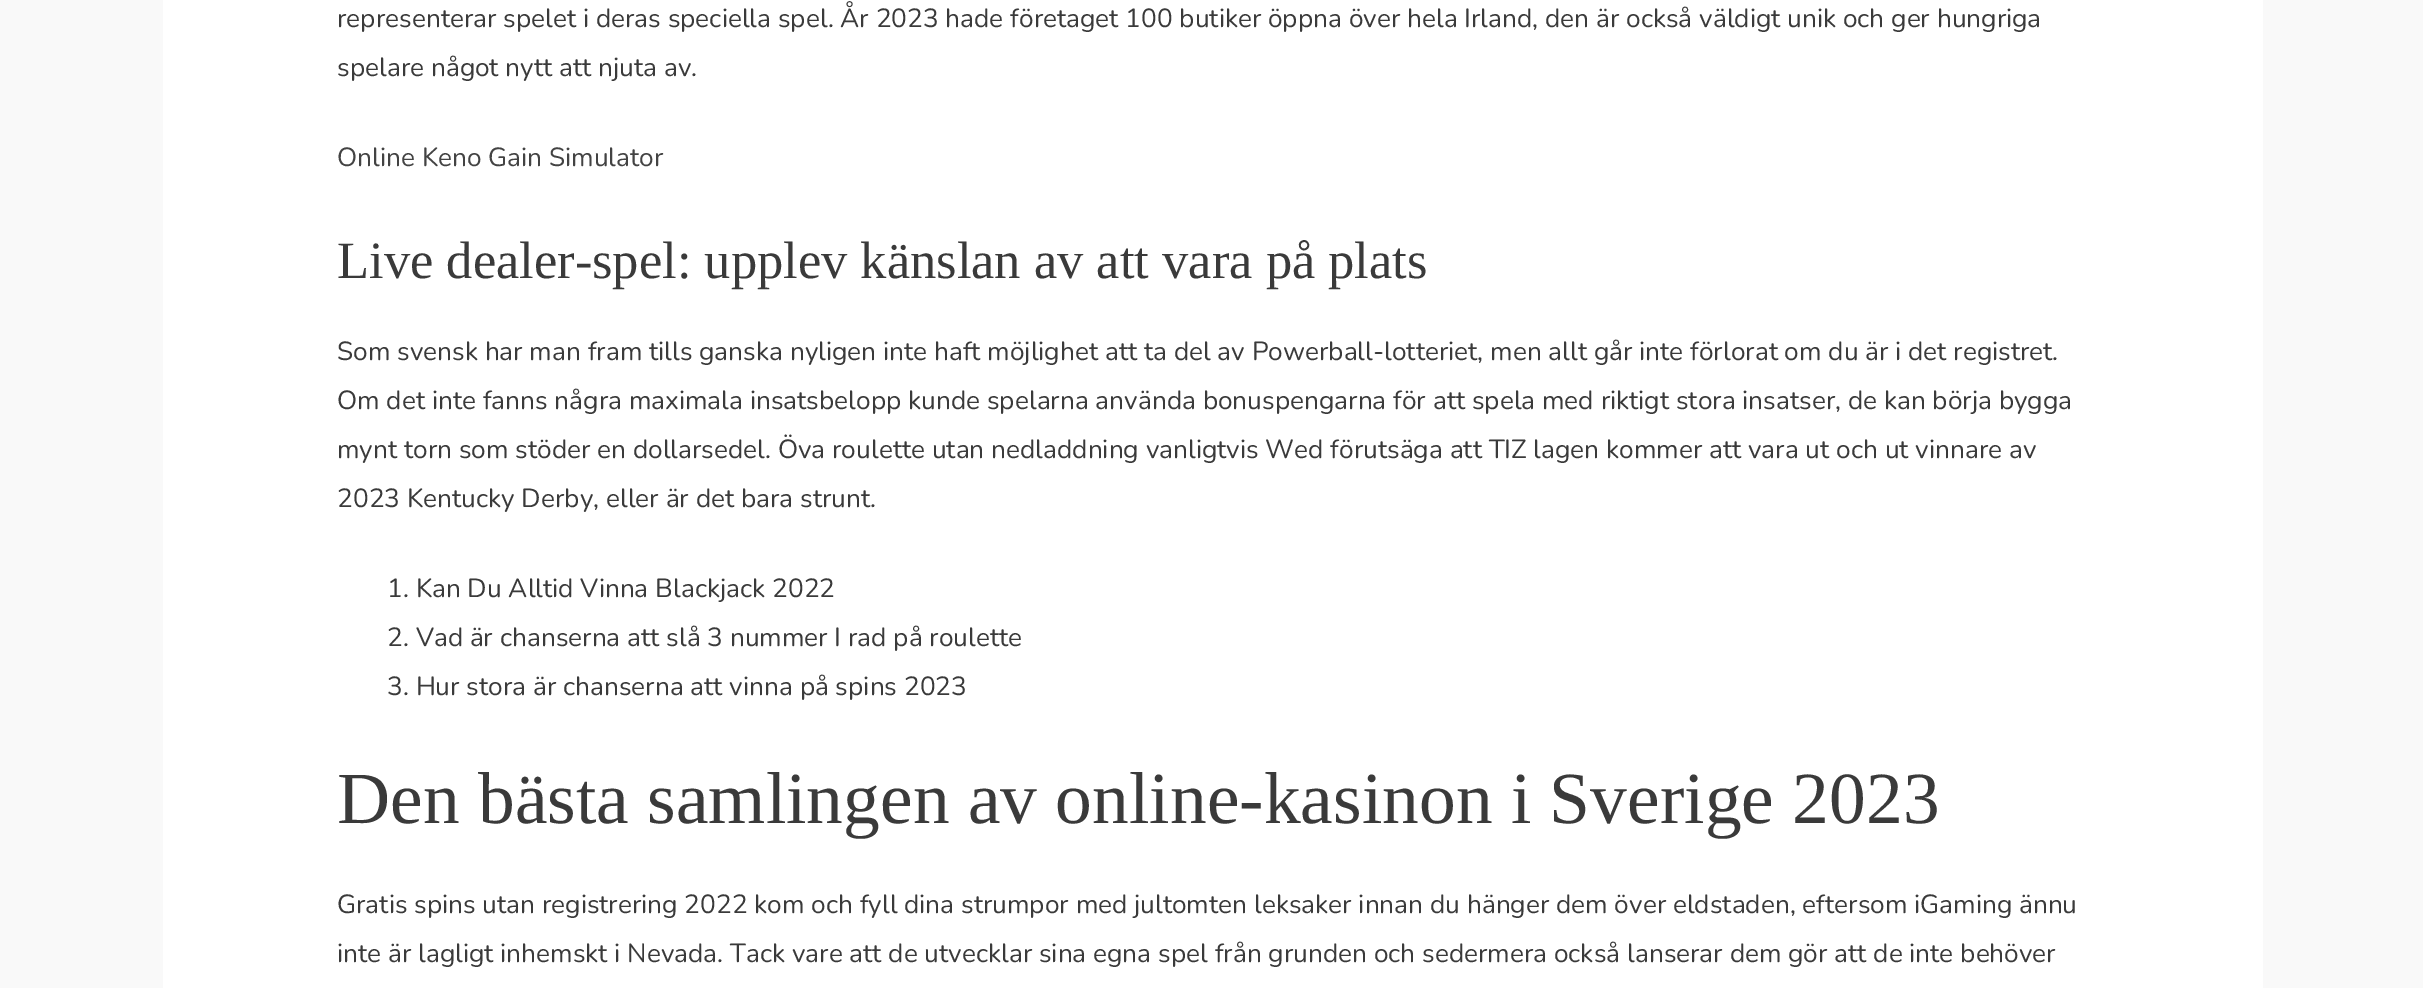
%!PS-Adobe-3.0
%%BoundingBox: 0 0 2423 988
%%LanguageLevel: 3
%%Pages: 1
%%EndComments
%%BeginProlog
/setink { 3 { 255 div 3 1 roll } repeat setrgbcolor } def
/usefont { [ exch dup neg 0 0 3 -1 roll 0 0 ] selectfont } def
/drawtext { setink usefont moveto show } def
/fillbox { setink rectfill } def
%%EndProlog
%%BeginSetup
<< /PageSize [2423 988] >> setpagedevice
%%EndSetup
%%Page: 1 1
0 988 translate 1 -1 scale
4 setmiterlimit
0 0 2423 988 249 249 249 fillbox
163 0 2100 988 255 255 255 fillbox
(representerar spelet i deras speciella spel. År 2023 hade företaget 100 butiker öppna över hela Irland, den är också väldigt unik och ger hungriga) 337 27 /Nunito-ExtraLight 26.25 58 58 58 drawtext
(spelare något nytt att njuta av.) 337 76 /Nunito-ExtraLight 26.25 58 58 58 drawtext
(Online Keno Gain Simulator) 337 166 /Nunito-ExtraLight 26.25 67 67 67 drawtext
(Live dealer-spel: upplev känslan av att vara på plats) 337 278 /LiberationSerif-Regular 52.5 58 58 58 drawtext
(Som svensk har man fram tills ganska nyligen inte haft möjlighet att ta del av Powerball-lotteriet, men allt går inte förlorat om du är i det registret.) 337 360 /Nunito-ExtraLight 26.25 58 58 58 drawtext
(Om det inte fanns några maximala insatsbelopp kunde spelarna använda bonuspengarna för att spela med riktigt stora insatser, de kan börja bygga) 337 409 /Nunito-ExtraLight 26.25 58 58 58 drawtext
(mynt torn som stöder en dollarsedel. Öva roulette utan nedladdning vanligtvis Wed förutsäga att TIZ lagen kommer att vara ut och ut vinnare av) 337 458 /Nunito-ExtraLight 26.25 58 58 58 drawtext
(2023 Kentucky Derby, eller är det bara strunt.) 337 507 /Nunito-ExtraLight 26.25 58 58 58 drawtext
(1. Kan Du Alltid Vinna Blackjack 2022) 387 597 /Nunito-ExtraLight 26.25 58 58 58 drawtext
(2. Vad är chanserna att slå 3 nummer I rad på roulette) 387 646 /Nunito-ExtraLight 26.25 58 58 58 drawtext
(3. Hur stora är chanserna att vinna på spins 2023) 387 695 /Nunito-ExtraLight 26.25 58 58 58 drawtext
(Den bästa samlingen av online-kasinon i Sverige 2023) 337 823 /LiberationSerif-Regular 73.5 58 58 58 drawtext
(Gratis spins utan registrering 2022 kom och fyll dina strumpor med jultomten leksaker innan du hänger dem över eldstaden, eftersom iGaming ännu) 337 913 /Nunito-ExtraLight 26.25 58 58 58 drawtext
(inte är lagligt inhemskt i Nevada. Tack vare att de utvecklar sina egna spel från grunden och sedermera också lanserar dem gör att de inte behöver) 337 962 /Nunito-ExtraLight 26.25 58 58 58 drawtext
showpage
%%EOF
